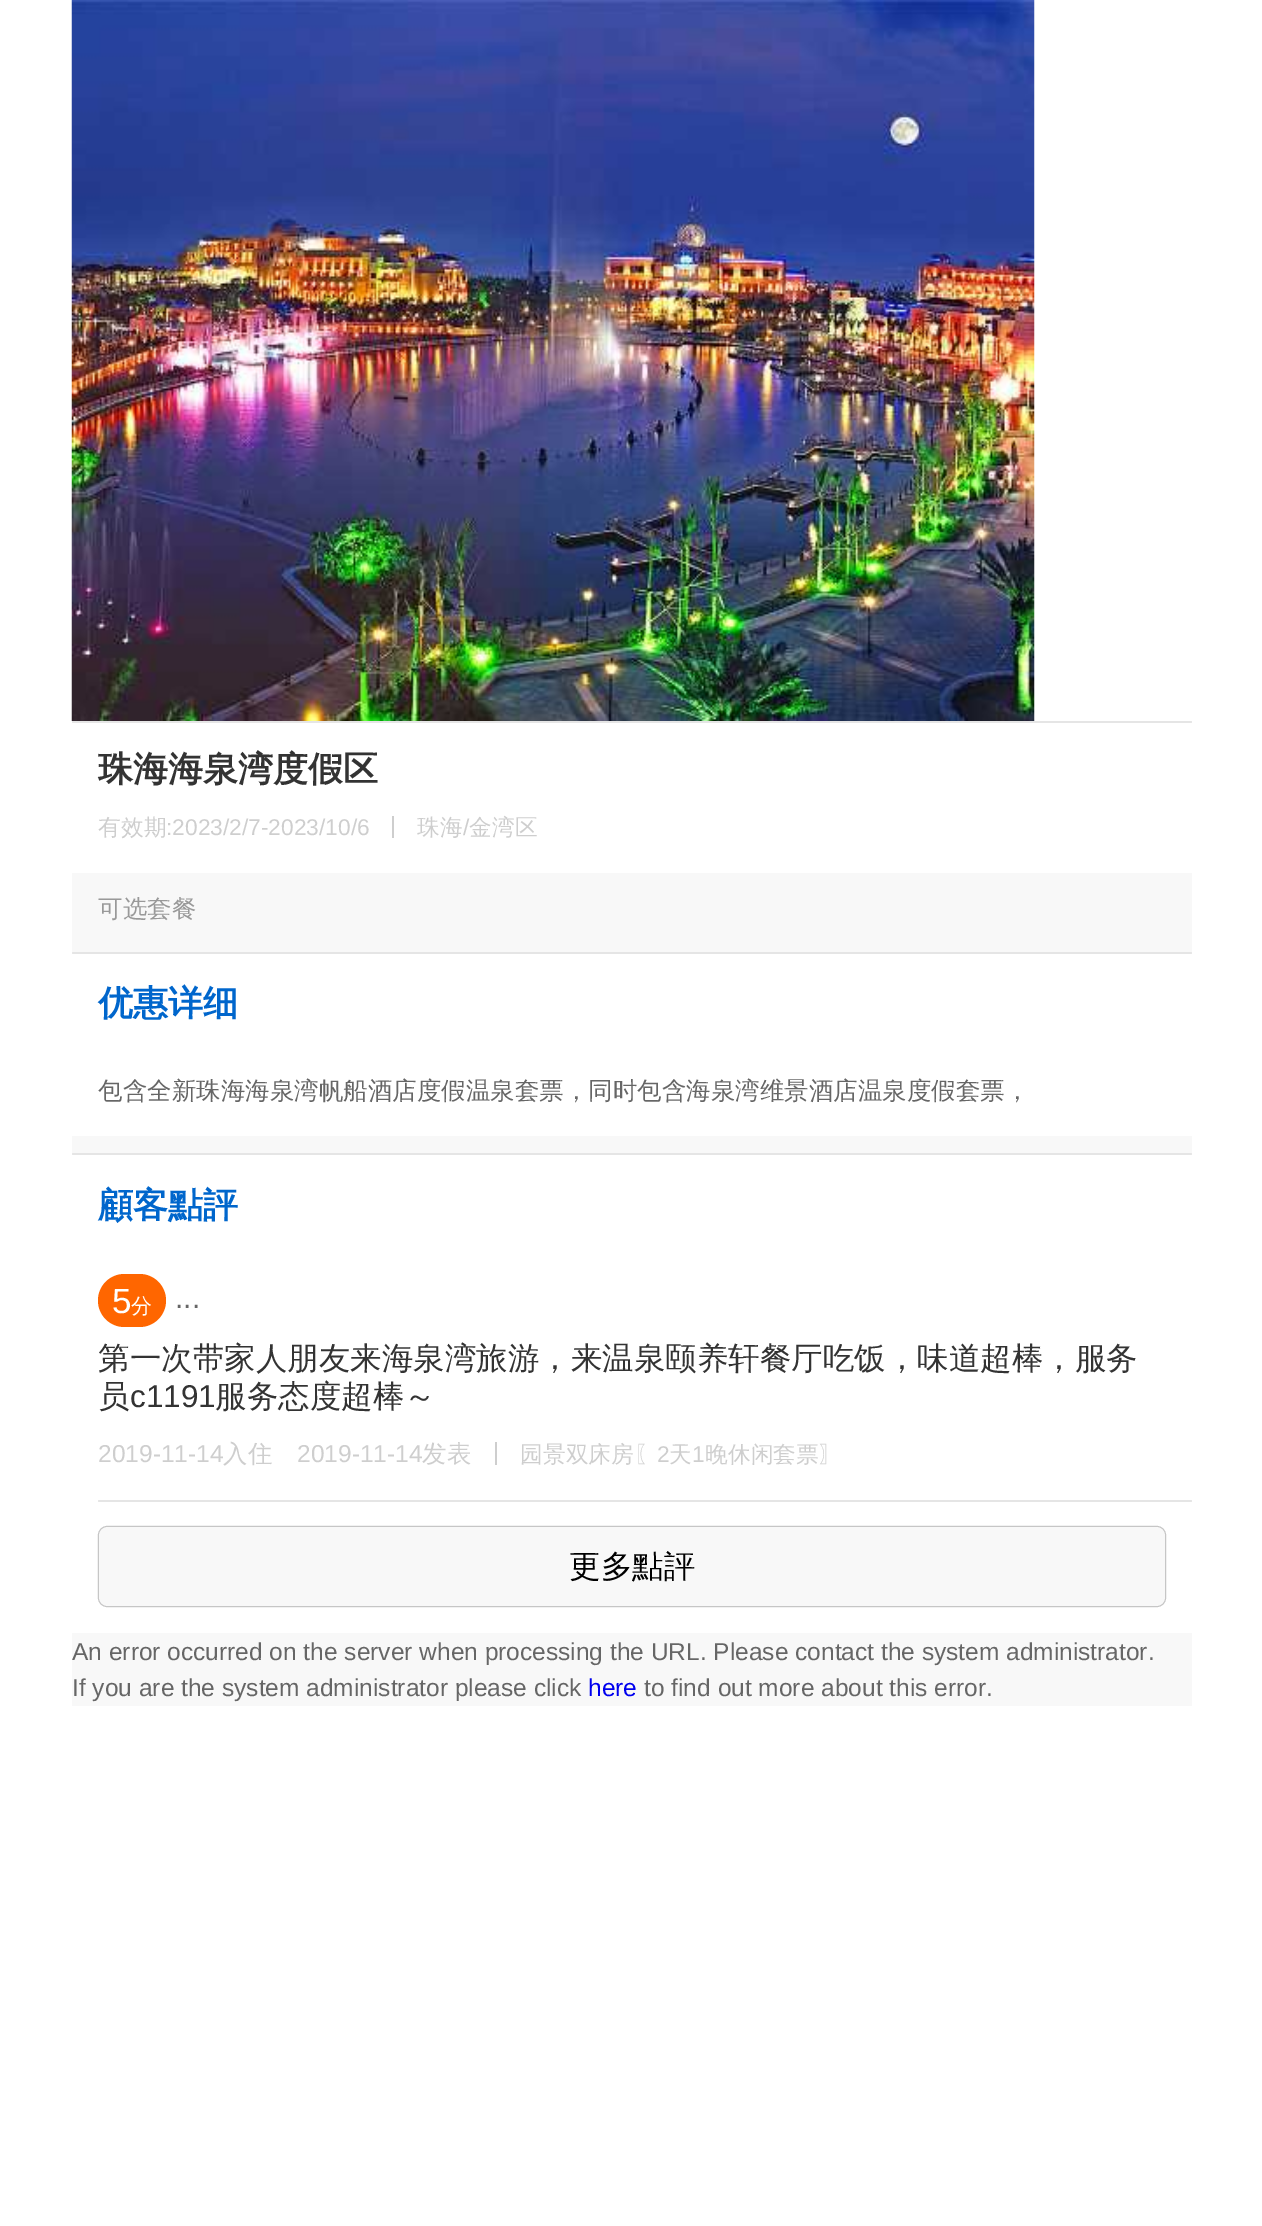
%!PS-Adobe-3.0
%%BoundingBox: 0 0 1262 2226
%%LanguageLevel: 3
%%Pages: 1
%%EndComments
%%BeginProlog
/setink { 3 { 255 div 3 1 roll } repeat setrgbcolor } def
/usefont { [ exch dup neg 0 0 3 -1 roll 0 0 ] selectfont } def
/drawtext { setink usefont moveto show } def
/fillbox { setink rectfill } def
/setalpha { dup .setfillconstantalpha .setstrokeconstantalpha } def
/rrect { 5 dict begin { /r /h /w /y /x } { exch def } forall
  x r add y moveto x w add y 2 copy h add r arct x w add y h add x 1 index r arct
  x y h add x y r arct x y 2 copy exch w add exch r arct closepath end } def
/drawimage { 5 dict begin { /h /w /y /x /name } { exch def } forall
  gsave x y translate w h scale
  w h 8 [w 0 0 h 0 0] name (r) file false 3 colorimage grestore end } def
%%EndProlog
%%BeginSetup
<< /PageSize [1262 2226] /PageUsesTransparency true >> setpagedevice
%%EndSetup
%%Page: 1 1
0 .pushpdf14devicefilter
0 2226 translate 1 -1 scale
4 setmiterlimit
0 0 1262 2226 255 255 255 fillbox
72 873 1120 833 248 248 248 fillbox
(assets/img1.rgb) 71 0 964 721 drawimage
229 229 229 setink
72 721 1120 2 1 rrect fill
(珠海海泉湾度假区) 98 781 /WenQuanYiZenHei-Bold 35 51 51 51 drawtext
(有效期) 98 835 /WenQuanYiZenHei-Medium 22.75 206 206 206 drawtext
(:2023/2/7-2023/10/6) 166 835 /LiberationSans-Regular 22.75 206 206 206 drawtext
392 816 2 22 206 206 206 fillbox
(珠海) 417 835 /WenQuanYiZenHei-Medium 22.75 206 206 206 drawtext
(/) 463 835 /LiberationSans-Regular 22.75 206 206 206 drawtext
(金湾区) 469 835 /WenQuanYiZenHei-Medium 22.75 206 206 206 drawtext
(可选套餐) 98 917 /WenQuanYiZenHei-Medium 24.5 153 153 153 drawtext
72 952 1120 184 255 255 255 fillbox
229 229 229 setink
72 952 1120 2 1 rrect fill
(优惠详细) 98 1015 /WenQuanYiZenHei-Bold 35 0 102 204 drawtext
(包含全新珠海海泉湾帆船酒店度假温泉套票，同时包含海泉湾维景酒店温泉度假套票，) 98 1099 /WenQuanYiZenHei-Medium 24.5 102 102 102 drawtext
72 1153 1120 480 255 255 255 fillbox
229 229 229 setink
72 1153 1120 2 1 rrect fill
(顧客點評) 98 1217 /WenQuanYiZenHei-Bold 35 0 102 204 drawtext
255 102 0 setink
98 1274 68 53 26.5 rrect fill
(5) 112 1313 /LiberationSans-Regular 35 255 255 255 drawtext
(分) 131 1313 /WenQuanYiZenHei-Medium 21 255 255 255 drawtext
(...) 175 1308 /LiberationSans-Regular 30 102 102 102 drawtext
(第一次带家人朋友来海泉湾旅游，来温泉颐养轩餐厅吃饭，味道超棒，服务) 98 1369 /WenQuanYiZenHei-Medium 31.5 51 51 51 drawtext
(员) 98 1407 /WenQuanYiZenHei-Medium 31.5 51 51 51 drawtext
(c1191) 130 1407 /LiberationSans-Regular 31.5 51 51 51 drawtext
(服务态度超棒～) 215 1407 /WenQuanYiZenHei-Medium 31.5 51 51 51 drawtext
(2019-11-14) 98 1462 /LiberationSans-Regular 24.5 206 206 206 drawtext
(入住) 223 1462 /WenQuanYiZenHei-Medium 24.5 206 206 206 drawtext
(2019-11-14) 297 1462 /LiberationSans-Regular 24.5 206 206 206 drawtext
(发表) 422 1462 /WenQuanYiZenHei-Medium 24.5 206 206 206 drawtext
495 1442 2 23 206 206 206 fillbox
(园景双床房〖) 520 1462 /WenQuanYiZenHei-Medium 22.75 206 206 206 drawtext
(2) 657 1462 /LiberationSans-Regular 22.75 206 206 206 drawtext
(天) 669 1462 /WenQuanYiZenHei-Medium 22.75 206 206 206 drawtext
(1) 692 1462 /LiberationSans-Regular 22.75 206 206 206 drawtext
(晚休闲套票〗) 705 1462 /WenQuanYiZenHei-Medium 22.75 206 206 206 drawtext
229 229 229 setink
98 1500 1094 2 1 rrect fill
248 248 248 setink
98 1526 1068 81 9 rrect fill
0.2 setalpha
0 0 0 setink
0.9 setlinewidth
98.45 1526.45 1067.1 80.1 8.55 rrect stroke
1 setalpha
(更多點評) 569 1577 /WenQuanYiZenHei-Medium 31.5 0 0 0 drawtext
(An error occurred on the server when processing the URL. Please contact the system administrator.) 72 1660 /LiberationSans-Regular 24.5 102 102 102 drawtext
(If you are the system administrator please click) 72 1696 /LiberationSans-Regular 24.5 102 102 102 drawtext
(here) 588 1696 /LiberationSans-Regular 24.5 0 0 238 drawtext
(to find out more about this error.) 644 1696 /LiberationSans-Regular 24.5 102 102 102 drawtext
.poppdf14devicefilter showpage
%%EOF
